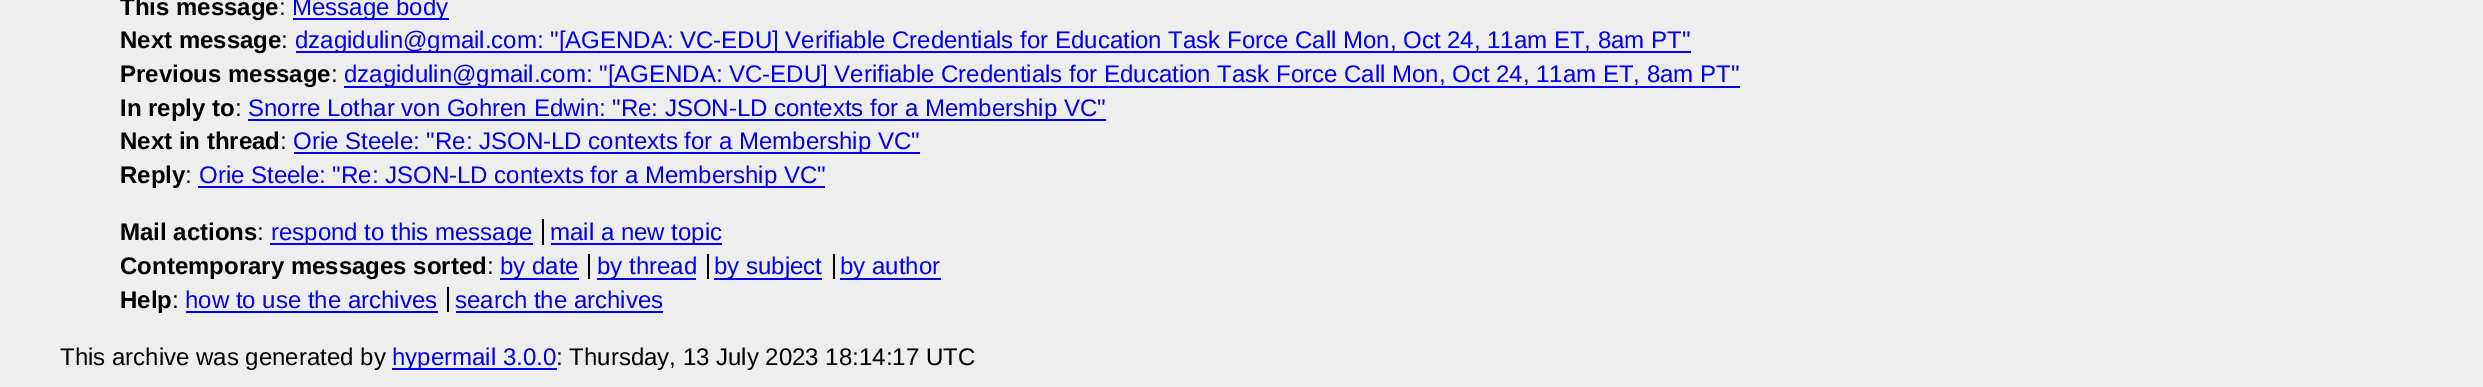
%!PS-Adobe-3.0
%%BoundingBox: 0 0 2483 387
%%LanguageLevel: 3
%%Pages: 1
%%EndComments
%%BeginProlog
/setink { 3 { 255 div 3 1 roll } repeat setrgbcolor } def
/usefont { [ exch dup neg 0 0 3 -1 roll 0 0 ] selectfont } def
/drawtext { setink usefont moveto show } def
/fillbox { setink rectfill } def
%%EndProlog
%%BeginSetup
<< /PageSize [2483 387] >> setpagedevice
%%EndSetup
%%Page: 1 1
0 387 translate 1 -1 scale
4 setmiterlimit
0 0 2483 387 238 238 238 fillbox
(This message) 120 15 /LiberationSans-Bold 24 0 0 0 drawtext
(:) 279 15 /LiberationSans-Regular 24 0 0 0 drawtext
293 18 156 2 0 0 238 fillbox
(Message body) 292 15 /LiberationSans-Regular 24 0 0 238 drawtext
(Next message) 120 48 /LiberationSans-Bold 24 0 0 0 drawtext
(:) 281 48 /LiberationSans-Regular 24 0 0 0 drawtext
296 51 1395 2 0 0 238 fillbox
(dzagidulin@gmail.com: "[AGENDA: VC-EDU] Verifiable Credentials for Education Task Force Call Mon, Oct 24, 11am ET, 8am PT") 295 48 /LiberationSans-Regular 24 0 0 238 drawtext
(Previous message) 120 82 /LiberationSans-Bold 24 0 0 0 drawtext
(:) 331 82 /LiberationSans-Regular 24 0 0 0 drawtext
344 86 1396 2 0 0 238 fillbox
(dzagidulin@gmail.com: "[AGENDA: VC-EDU] Verifiable Credentials for Education Task Force Call Mon, Oct 24, 11am ET, 8am PT") 344 82 /LiberationSans-Regular 24 0 0 238 drawtext
(In reply to) 120 116 /LiberationSans-Bold 24 0 0 0 drawtext
(:) 235 116 /LiberationSans-Regular 24 0 0 0 drawtext
248 119 858 2 0 0 238 fillbox
(Snorre Lothar von Gohren Edwin: "Re: JSON-LD contexts for a Membership VC") 248 116 /LiberationSans-Regular 24 0 0 238 drawtext
(Next in thread) 120 149 /LiberationSans-Bold 24 0 0 0 drawtext
(:) 280 149 /LiberationSans-Regular 24 0 0 0 drawtext
294 152 626 2 0 0 238 fillbox
(Orie Steele: "Re: JSON-LD contexts for a Membership VC") 293 149 /LiberationSans-Regular 24 0 0 238 drawtext
(Reply) 120 183 /LiberationSans-Bold 24 0 0 0 drawtext
(:) 185 183 /LiberationSans-Regular 24 0 0 0 drawtext
198 186 627 2 0 0 238 fillbox
(Orie Steele: "Re: JSON-LD contexts for a Membership VC") 199 183 /LiberationSans-Regular 24 0 0 238 drawtext
(Mail actions) 120 240 /LiberationSans-Bold 24 0 0 0 drawtext
(:) 257 240 /LiberationSans-Regular 24 0 0 0 drawtext
270 243 263 2 0 0 238 fillbox
(respond to this message) 271 240 /LiberationSans-Regular 24 0 0 238 drawtext
551 243 171 2 0 0 238 fillbox
(mail a new topic) 550 240 /LiberationSans-Regular 24 0 0 238 drawtext
542 219 2 26 0 0 0 fillbox
(Contemporary messages sorted) 120 274 /LiberationSans-Bold 24 0 0 0 drawtext
(:) 487 274 /LiberationSans-Regular 24 0 0 0 drawtext
500 278 79 2 0 0 238 fillbox
(by date) 500 274 /LiberationSans-Regular 24 0 0 238 drawtext
597 278 99 2 0 0 238 fillbox
(by thread) 597 274 /LiberationSans-Regular 24 0 0 238 drawtext
588 254 2 25 0 0 0 fillbox
714 278 108 2 0 0 238 fillbox
(by subject) 714 274 /LiberationSans-Regular 24 0 0 238 drawtext
707 254 2 25 0 0 0 fillbox
840 278 101 2 0 0 238 fillbox
(by author) 840 274 /LiberationSans-Regular 24 0 0 238 drawtext
833 254 2 25 0 0 0 fillbox
(Help) 120 308 /LiberationSans-Bold 24 0 0 0 drawtext
(:) 172 308 /LiberationSans-Regular 24 0 0 0 drawtext
(how to use the archives) 185 308 /LiberationSans-Regular 24 0 0 238 drawtext
186 311 252 2 0 0 238 fillbox
(search the archives) 455 308 /LiberationSans-Regular 24 0 0 238 drawtext
447 287 2 25 0 0 0 fillbox
456 311 207 2 0 0 238 fillbox
(This archive was generated by) 60 365 /LiberationSans-Regular 24 0 0 0 drawtext
392 368 165 2 0 0 238 fillbox
(hypermail 3.0.0) 392 365 /LiberationSans-Regular 24 0 0 238 drawtext
(: Thursday, 13 July 2023 18:14:17 UTC) 556 365 /LiberationSans-Regular 24 0 0 0 drawtext
showpage
%%EOF
